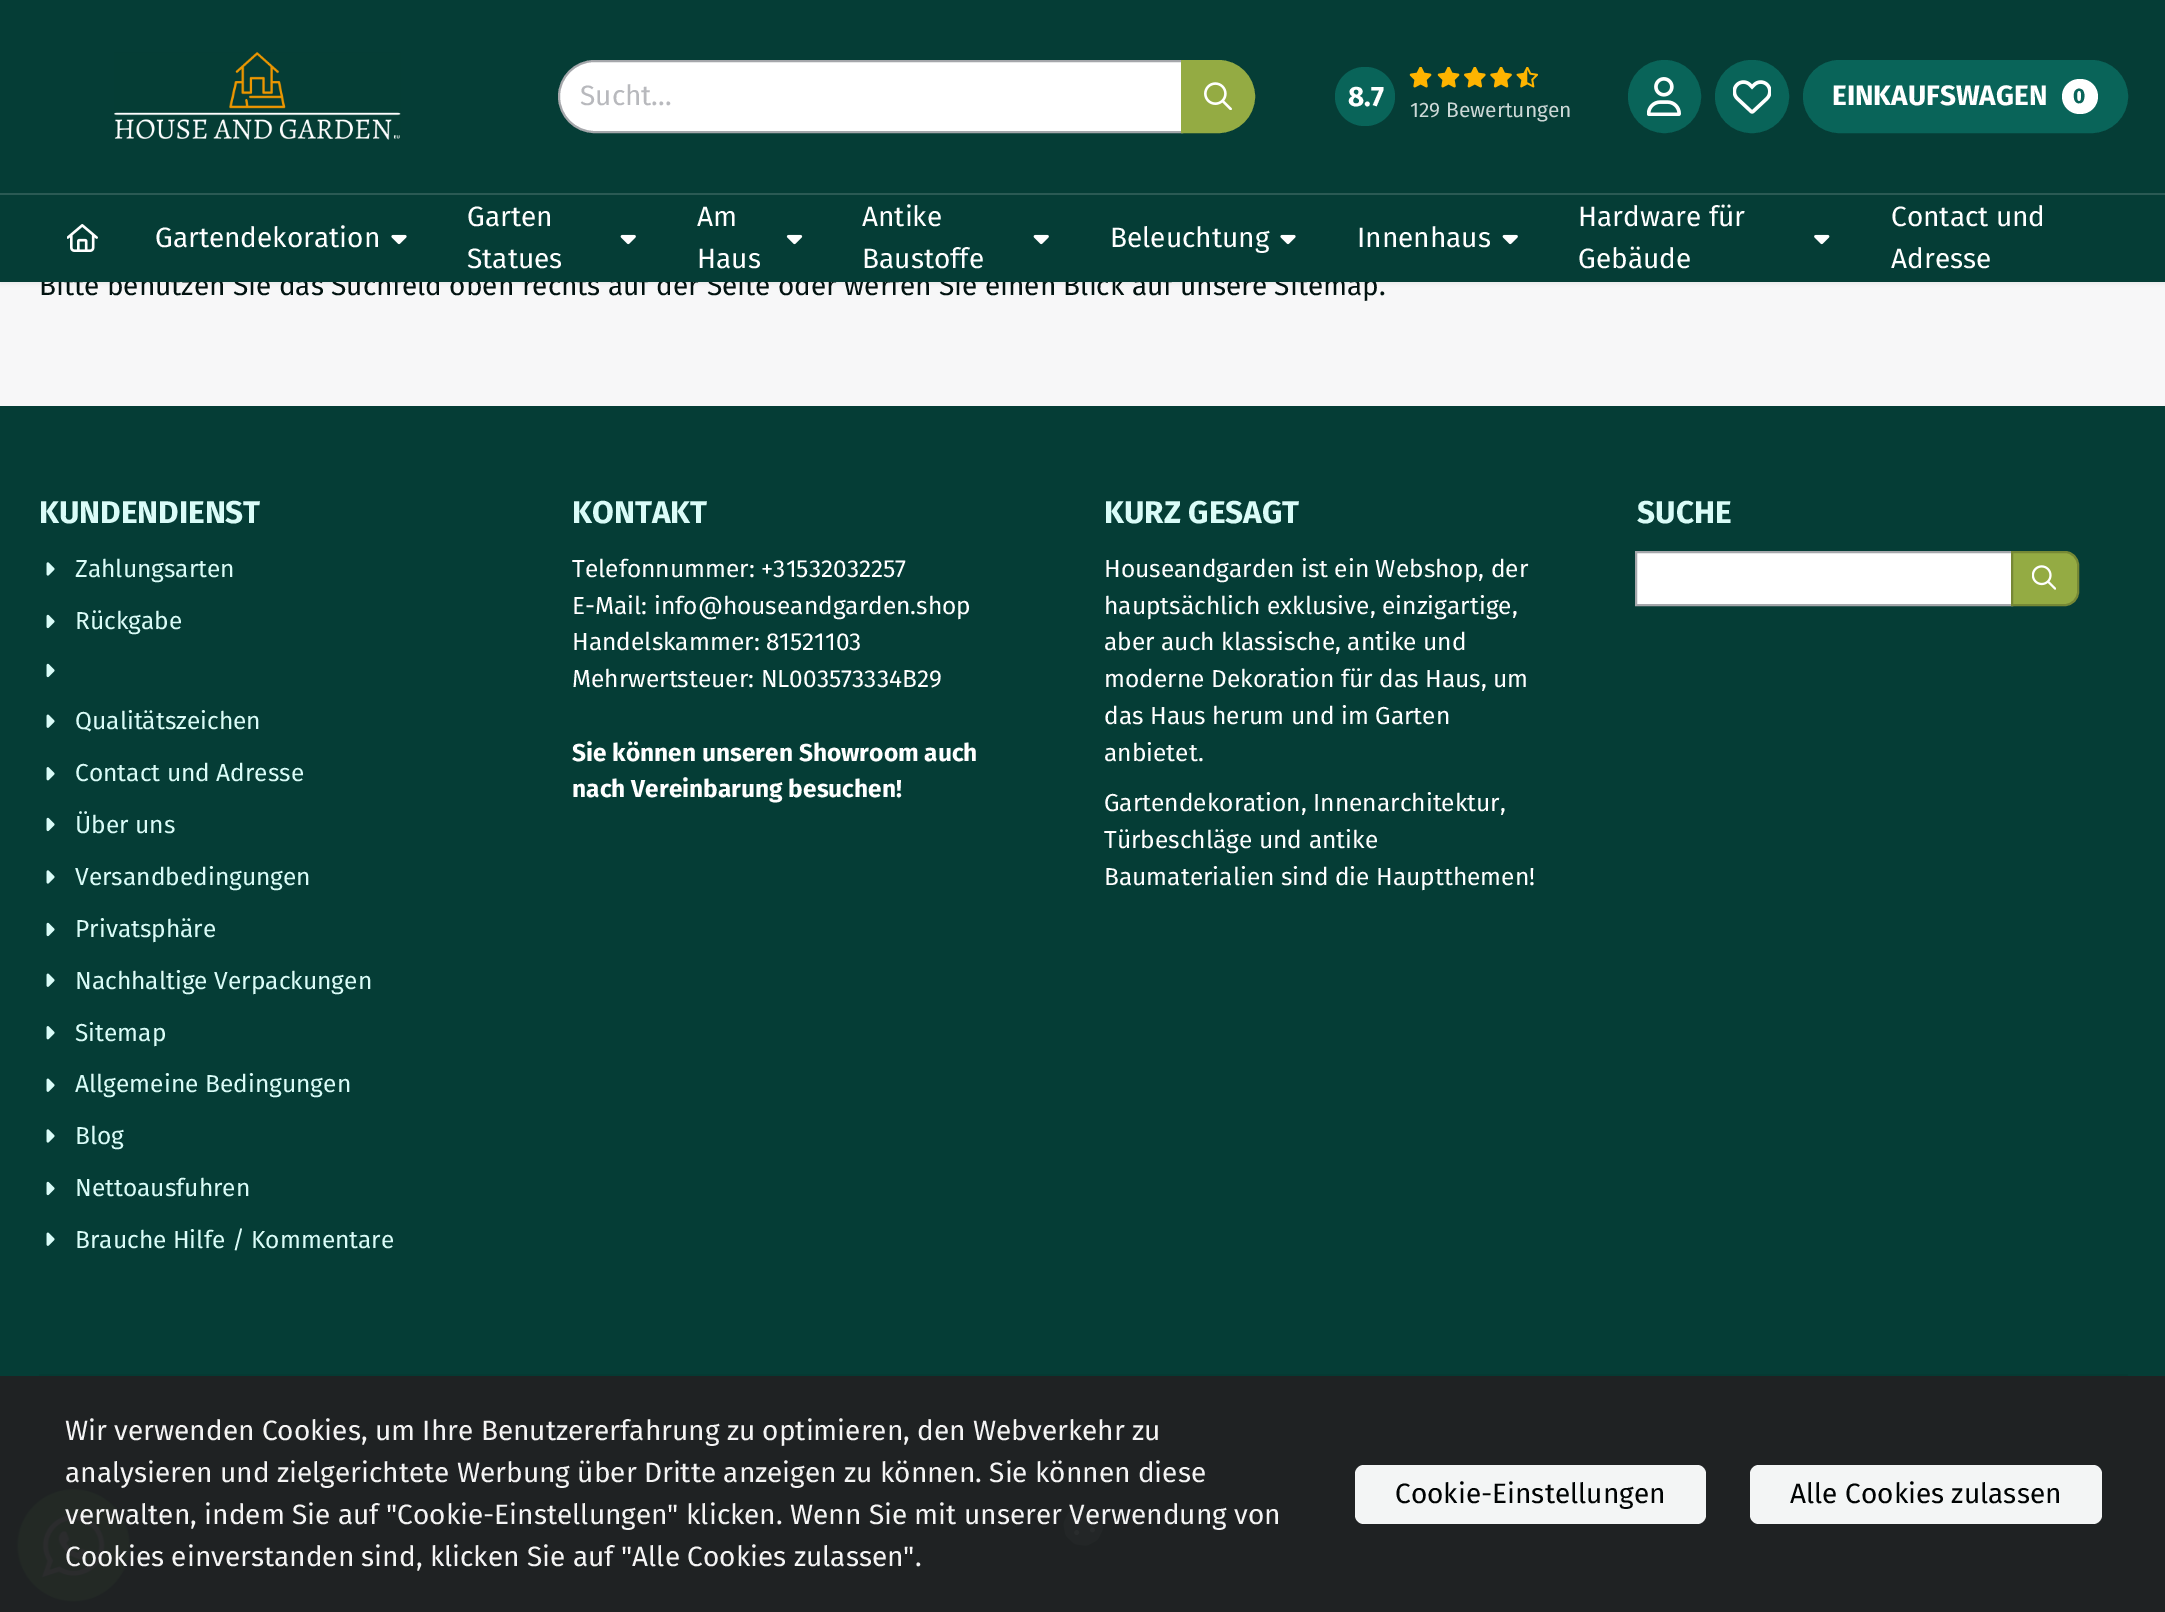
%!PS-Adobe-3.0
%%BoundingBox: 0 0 2165 1612
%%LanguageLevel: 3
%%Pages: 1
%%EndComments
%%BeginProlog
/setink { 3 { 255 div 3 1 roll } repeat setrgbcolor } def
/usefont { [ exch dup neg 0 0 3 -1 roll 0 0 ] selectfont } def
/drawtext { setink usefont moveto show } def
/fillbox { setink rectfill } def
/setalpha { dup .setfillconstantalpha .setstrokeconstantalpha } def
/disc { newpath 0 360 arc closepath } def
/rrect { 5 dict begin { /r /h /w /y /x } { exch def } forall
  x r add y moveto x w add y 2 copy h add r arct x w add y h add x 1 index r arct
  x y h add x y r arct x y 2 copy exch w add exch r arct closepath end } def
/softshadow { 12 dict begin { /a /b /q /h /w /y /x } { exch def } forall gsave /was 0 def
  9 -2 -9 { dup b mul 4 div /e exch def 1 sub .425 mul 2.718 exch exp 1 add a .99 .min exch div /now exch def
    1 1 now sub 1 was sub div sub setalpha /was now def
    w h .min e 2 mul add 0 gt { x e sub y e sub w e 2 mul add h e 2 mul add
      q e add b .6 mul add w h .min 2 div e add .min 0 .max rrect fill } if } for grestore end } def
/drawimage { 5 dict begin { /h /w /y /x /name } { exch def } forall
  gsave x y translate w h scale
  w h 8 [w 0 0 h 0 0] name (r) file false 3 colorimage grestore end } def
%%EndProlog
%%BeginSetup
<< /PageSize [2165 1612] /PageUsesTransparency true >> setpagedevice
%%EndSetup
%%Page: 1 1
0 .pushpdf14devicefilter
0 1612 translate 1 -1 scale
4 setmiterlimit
0 0 2165 1612 247 247 248 fillbox
0 0 0 setink
0 194 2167 90 0 2 0.05 softshadow
0 0 2165 193 5 61 54 fillbox
(assets/img1.rgb) 114 52 287 88 drawimage
255 255 255 setink
594.5 61 moveto 1182 61 lineto 1182 132 lineto 594.5 132 lineto 575 132 559 116 559 96.5 curveto 559 77 575 61 594.5 61 curveto closepath gsave fill grestore
165 167 171 setink
2 setlinewidth
stroke
(Sucht...) 580 105 /FiraSans-Regular 28 184 185 189 drawtext
148 171 67 setink
1182 61 moveto 1218.5 61 lineto 1238 61 1254 77 1254 96.5 curveto 1254 116 1238 132 1218.5 132 curveto 1182 132 lineto closepath gsave fill grestore
stroke
(assets/img2.rgb) 1204 82 28 28 drawimage
9 100 89 setink
1335 67 60 59 29.5 rrect fill
(8.7) 1348 106 /FiraSans-Bold 28 255 255 255 drawtext
(assets/img3.rgb) 1409 67 23 21 drawimage
(assets/img3.rgb) 1437 67 23 21 drawimage
(assets/img4.rgb) 1464 67 22 21 drawimage
(assets/img5.rgb) 1490 67 22 21 drawimage
(assets/img6.rgb) 1516 67 22 21 drawimage
(129 Bewertungen) 1410 117 /FiraSans-Regular 21 205 216 215 drawtext
9 100 89 setink
1664.5 96.5 35.5 disc gsave fill grestore
stroke
(assets/img7.rgb) 1647 77 34 39 drawimage
1716 61 72 71 35.5 rrect gsave fill grestore
stroke
(assets/img8.rgb) 1733 80 38 34 drawimage
1804 61 323 71 35.5 rrect gsave fill grestore
stroke
(EINKAUFSWAGEN) 1832 105 /FiraSans-Bold 28 255 255 255 drawtext
2062 79 36 35 17.5 rrect fill
(0) 2073 103 /FiraSans-Bold 21 9 100 89 drawtext
(Bitte benutzen Sie das Suchfeld oben rechts auf der Seite oder werfen Sie einen Blick auf unsere Sitemap.) 39 295 /FiraSans-Regular 28 2 19 17 drawtext
0 195 2165 87 5 61 54 fillbox
0 193 2165 2 43 90 84 fillbox
(assets/img9.rgb) 67 224 31 28 drawimage
(Gartendekoration) 155 247 /FiraSans-Regular 28 255 255 255 drawtext
(assets/img10.rgb) 391 234 16 11 drawimage
(Garten) 467 226 /FiraSans-Regular 28 255 255 255 drawtext
(Statues) 467 268 /FiraSans-Regular 28 255 255 255 drawtext
(assets/img11.rgb) 620 234 16 11 drawimage
(Am) 697 226 /FiraSans-Regular 28 255 255 255 drawtext
(Haus) 697 268 /FiraSans-Regular 28 255 255 255 drawtext
(assets/img12.rgb) 786 234 17 11 drawimage
(Antike) 862 226 /FiraSans-Regular 28 255 255 255 drawtext
(Baustoffe) 862 268 /FiraSans-Regular 28 255 255 255 drawtext
(assets/img11.rgb) 1033 234 16 11 drawimage
(Beleuchtung) 1110 247 /FiraSans-Regular 28 255 255 255 drawtext
(assets/img10.rgb) 1280 234 16 11 drawimage
(Innenhaus) 1357 247 /FiraSans-Regular 28 255 255 255 drawtext
(assets/img11.rgb) 1502 234 16 11 drawimage
(Hardware für) 1578 226 /FiraSans-Regular 28 255 255 255 drawtext
(Gebäude) 1578 268 /FiraSans-Regular 28 255 255 255 drawtext
(assets/img13.rgb) 1814 234 16 11 drawimage
(Contact und) 1891 226 /FiraSans-Regular 28 255 255 255 drawtext
(Adresse) 1891 268 /FiraSans-Regular 28 255 255 255 drawtext
0 406 2165 970 5 61 54 fillbox
0 1376 2165 236 31 34 35 fillbox
(KUNDENDIENST) 39 523 /FiraSans-Bold 31.5 218 252 248 drawtext
(assets/img14.rgb) 46 562 9 14 drawimage
(Zahlungsarten) 75 577 /FiraSans-Regular 24.5 218 252 248 drawtext
(assets/img15.rgb) 46 614 9 15 drawimage
(Rückgabe) 75 629 /FiraSans-Regular 24.5 218 252 248 drawtext
(assets/img15.rgb) 46 663 9 15 drawimage
(assets/img16.rgb) 46 714 9 14 drawimage
(Qualitätszeichen) 75 729 /FiraSans-Regular 24.5 218 252 248 drawtext
(assets/img17.rgb) 46 767 9 14 drawimage
(Contact und Adresse) 75 781 /FiraSans-Regular 24.5 218 252 248 drawtext
(assets/img15.rgb) 46 817 9 15 drawimage
(Über uns) 75 833 /FiraSans-Regular 24.5 218 252 248 drawtext
(assets/img14.rgb) 46 870 9 14 drawimage
(Versandbedingungen) 75 885 /FiraSans-Regular 24.5 218 252 248 drawtext
(assets/img15.rgb) 46 922 9 15 drawimage
(Privatsphäre) 75 937 /FiraSans-Regular 24.5 218 252 248 drawtext
(assets/img16.rgb) 46 973 9 14 drawimage
(Nachhaltige Verpackungen) 75 989 /FiraSans-Regular 24.5 218 252 248 drawtext
(assets/img17.rgb) 46 1026 9 14 drawimage
(Sitemap) 75 1041 /FiraSans-Regular 24.5 218 252 248 drawtext
(assets/img16.rgb) 46 1078 9 14 drawimage
(Allgemeine Bedingungen) 75 1092 /FiraSans-Regular 24.5 218 252 248 drawtext
(assets/img14.rgb) 46 1129 9 14 drawimage
(Blog) 75 1144 /FiraSans-Regular 24.5 218 252 248 drawtext
(assets/img15.rgb) 46 1181 9 15 drawimage
(Nettoausfuhren) 75 1196 /FiraSans-Regular 24.5 218 252 248 drawtext
(assets/img16.rgb) 46 1232 9 14 drawimage
(Brauche Hilfe / Kommentare) 75 1248 /FiraSans-Regular 24.5 218 252 248 drawtext
(KONTAKT) 572 523 /FiraSans-Bold 31.5 218 252 248 drawtext
(Telefonnummer: +31532032257) 572 577 /FiraSans-Regular 24.5 255 255 255 drawtext
(E-Mail: info@houseandgarden.shop) 572 614 /FiraSans-Regular 24.5 255 255 255 drawtext
(Handelskammer: 81521103) 572 650 /FiraSans-Regular 24.5 255 255 255 drawtext
(Mehrwertsteuer: NL003573334B29) 572 687 /FiraSans-Regular 24.5 255 255 255 drawtext
(Sie können unseren Showroom auch) 572 761 /FiraSans-Bold 24.5 255 255 255 drawtext
(nach Vereinbarung besuchen!) 572 797 /FiraSans-Bold 24.5 255 255 255 drawtext
(KURZ GESAGT) 1104 523 /FiraSans-Bold 31.5 218 252 248 drawtext
(Houseandgarden ist ein Webshop, der) 1104 577 /FiraSans-Regular 24.5 255 255 255 drawtext
(hauptsächlich exklusive, einzigartige,) 1104 614 /FiraSans-Regular 24.5 255 255 255 drawtext
(aber auch klassische, antike und) 1104 650 /FiraSans-Regular 24.5 255 255 255 drawtext
(moderne Dekoration für das Haus, um) 1104 687 /FiraSans-Regular 24.5 255 255 255 drawtext
(das Haus herum und im Garten) 1104 724 /FiraSans-Regular 24.5 255 255 255 drawtext
(anbietet.) 1104 761 /FiraSans-Regular 24.5 255 255 255 drawtext
(Gartendekoration, Innenarchitektur,) 1104 811 /FiraSans-Regular 24.5 255 255 255 drawtext
(Türbeschläge und antike) 1104 848 /FiraSans-Regular 24.5 255 255 255 drawtext
(Baumaterialien sind die Hauptthemen!) 1104 885 /FiraSans-Regular 24.5 255 255 255 drawtext
(SUCHE) 1637 523 /FiraSans-Bold 31.5 218 252 248 drawtext
255 255 255 setink
1636 552 moveto 2012 552 lineto 2012 605 lineto 1636 605 lineto closepath gsave fill grestore
165 167 171 setink
stroke
148 171 67 setink
2012 552 moveto 2065 552 lineto 2072 552 2078 558 2078 565 curveto 2078 592 lineto 2078 599 2072 605 2065 605 curveto 2012 605 lineto closepath gsave fill grestore
118 136 53 setink
stroke
(assets/img18.rgb) 2032 565 24 25 drawimage
39 1374 2089 2 5 58 51 fillbox
(assets/img19.rgb) 1063 1506 40 40 drawimage
(Wir verwenden Cookies, um Ihre Benutzererfahrung zu optimieren, den Webverkehr zu) 65 1440 /FiraSans-Regular 28 244 244 244 drawtext
(analysieren und zielgerichtete Werbung über Dritte anzeigen zu können. Sie können diese) 65 1482 /FiraSans-Regular 28 244 244 244 drawtext
(assets/img20.rgb) 16 1489 114 114 drawimage
(verwalten, indem Sie auf "Cookie-Einstellungen" klicken. Wenn Sie mit unserer Verwendung von) 65 1524 /FiraSans-Regular 28 244 244 244 drawtext
(Cookies einverstanden sind, klicken Sie auf "Alle Cookies zulassen".) 65 1566 /FiraSans-Regular 28 244 244 244 drawtext
243 245 245 setink
1355 1465 351 59 9 rrect fill
(Cookie-Einstellungen) 1395 1503 /FiraSans-Regular 28 0 3 3 drawtext
243 245 245 setink
1750 1465 352 59 9 rrect fill
(Alle Cookies zulassen) 1790 1503 /FiraSans-Regular 28 0 3 3 drawtext
.poppdf14devicefilter showpage
%%EOF
